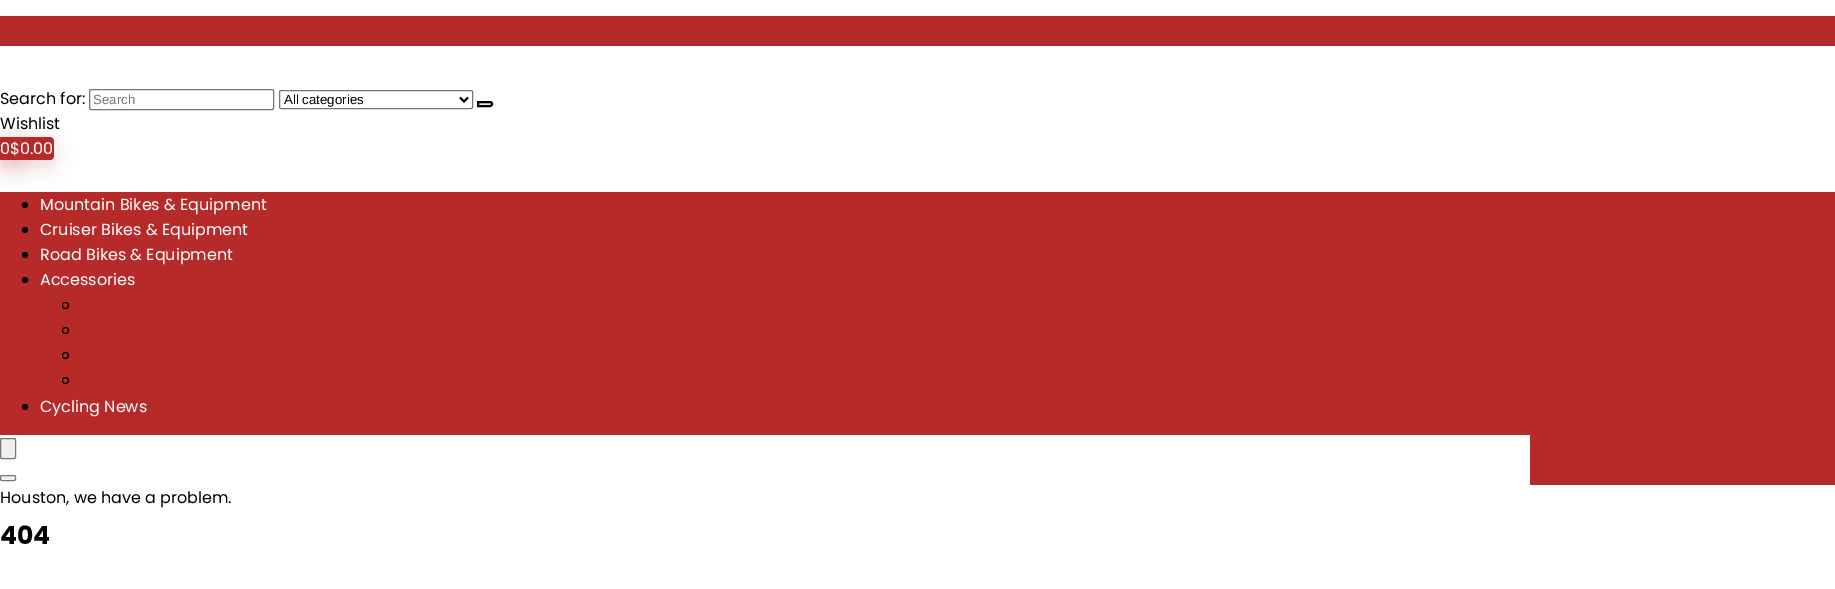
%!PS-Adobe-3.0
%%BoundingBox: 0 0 1835 589
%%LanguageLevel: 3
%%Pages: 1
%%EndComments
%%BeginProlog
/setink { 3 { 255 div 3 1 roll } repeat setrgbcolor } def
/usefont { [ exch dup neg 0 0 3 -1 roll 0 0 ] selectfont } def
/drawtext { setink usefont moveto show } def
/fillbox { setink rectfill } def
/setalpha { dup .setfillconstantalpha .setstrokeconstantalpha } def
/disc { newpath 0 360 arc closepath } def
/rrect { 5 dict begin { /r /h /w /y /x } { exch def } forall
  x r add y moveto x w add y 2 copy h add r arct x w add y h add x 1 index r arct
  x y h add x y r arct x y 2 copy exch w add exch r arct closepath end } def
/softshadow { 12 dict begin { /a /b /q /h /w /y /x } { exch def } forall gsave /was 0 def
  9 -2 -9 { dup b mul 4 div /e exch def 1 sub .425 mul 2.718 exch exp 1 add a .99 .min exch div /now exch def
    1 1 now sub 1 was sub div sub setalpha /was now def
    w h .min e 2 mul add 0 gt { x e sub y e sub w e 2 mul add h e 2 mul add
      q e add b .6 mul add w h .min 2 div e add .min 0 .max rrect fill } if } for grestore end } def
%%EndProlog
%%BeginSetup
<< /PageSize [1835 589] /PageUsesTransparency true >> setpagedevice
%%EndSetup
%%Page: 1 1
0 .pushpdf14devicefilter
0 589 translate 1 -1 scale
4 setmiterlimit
0 0 1835 589 255 255 255 fillbox
0 16 1835 30 183 42 42 fillbox
(Search for:) 0 104 /Poppins-Regular 16 0 0 0 drawtext
118 118 118 setink
89.5 89.5 184 20 1.5 rrect stroke
(Search) 93 104 /LiberationSans-Regular 13.25 117 117 117 drawtext
118 118 118 setink
279.5 90.5 193 18 1.5 rrect stroke
0 0 0 setink
2 setlinewidth
460 97.5 moveto 464 101.5 lineto 468 97.5 lineto stroke
(All categories) 284 104 /LiberationSans-Regular 13.25 0 0 0 drawtext
236 236 236 setink
478 102 moveto 490 102 lineto 491 102 492 103 492 104 curveto 492 105 491 106 490 106 curveto 478 106 lineto closepath gsave fill grestore
0 0 0 setink
stroke
(Wishlist) 0 129 /Poppins-Regular 16 0 0 0 drawtext
0 192 1835 293 183 42 42 fillbox
-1 143 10 23 4 9.5 0.2 softshadow
9 143 10 23 0 9.5 0.2 softshadow
10 137 10 23 183 42 42 fillbox
19 143 34 23 4 9.5 0.2 softshadow
20 137 moveto 50 137 lineto 52 137 54 139 54 141 curveto 54 156 lineto 54 158 52 160 50 160 curveto 20 160 lineto closepath fill
0 137 10 23 183 42 42 fillbox
(0$0.00) 0 154 /Poppins-Regular 16 255 255 255 drawtext
0 0 0 setink
25 205 3 disc fill
(Mountain Bikes & Equipment) 40 210 /Poppins-Regular 16 255 255 255 drawtext
0 0 0 setink
25 230 3 disc fill
(Cruiser Bikes & Equipment) 40 235 /Poppins-Regular 16 255 255 255 drawtext
0 0 0 setink
25 255 3 disc fill
(Road Bikes & Equipment) 40 260 /Poppins-Regular 16 255 255 255 drawtext
0 0 0 setink
25 280 3 disc fill
(Accessories) 40 285 /Poppins-Regular 16 255 255 255 drawtext
0 0 0 setink
1 setlinewidth
65.5 305.5 3 disc stroke
65.5 330.5 3 disc stroke
65.5 355.5 3 disc stroke
65.5 380.5 3 disc stroke
25 407 3 disc fill
(Cycling News) 40 412 /Poppins-Regular 16 255 255 255 drawtext
0 435 1530 50 255 255 255 fillbox
239 239 239 setink
0.5 438.5 15 20 1.5 rrect gsave fill grestore
118 118 118 setink
stroke
239 239 239 setink
0.5 475.5 15 5 1.5 rrect gsave fill grestore
118 118 118 setink
stroke
(Houston, we have a problem.) 0 503 /Poppins-Regular 16 0 0 0 drawtext
(404) 0 544 /Poppins-Bold 25 0 0 0 drawtext
.poppdf14devicefilter showpage
%%EOF
